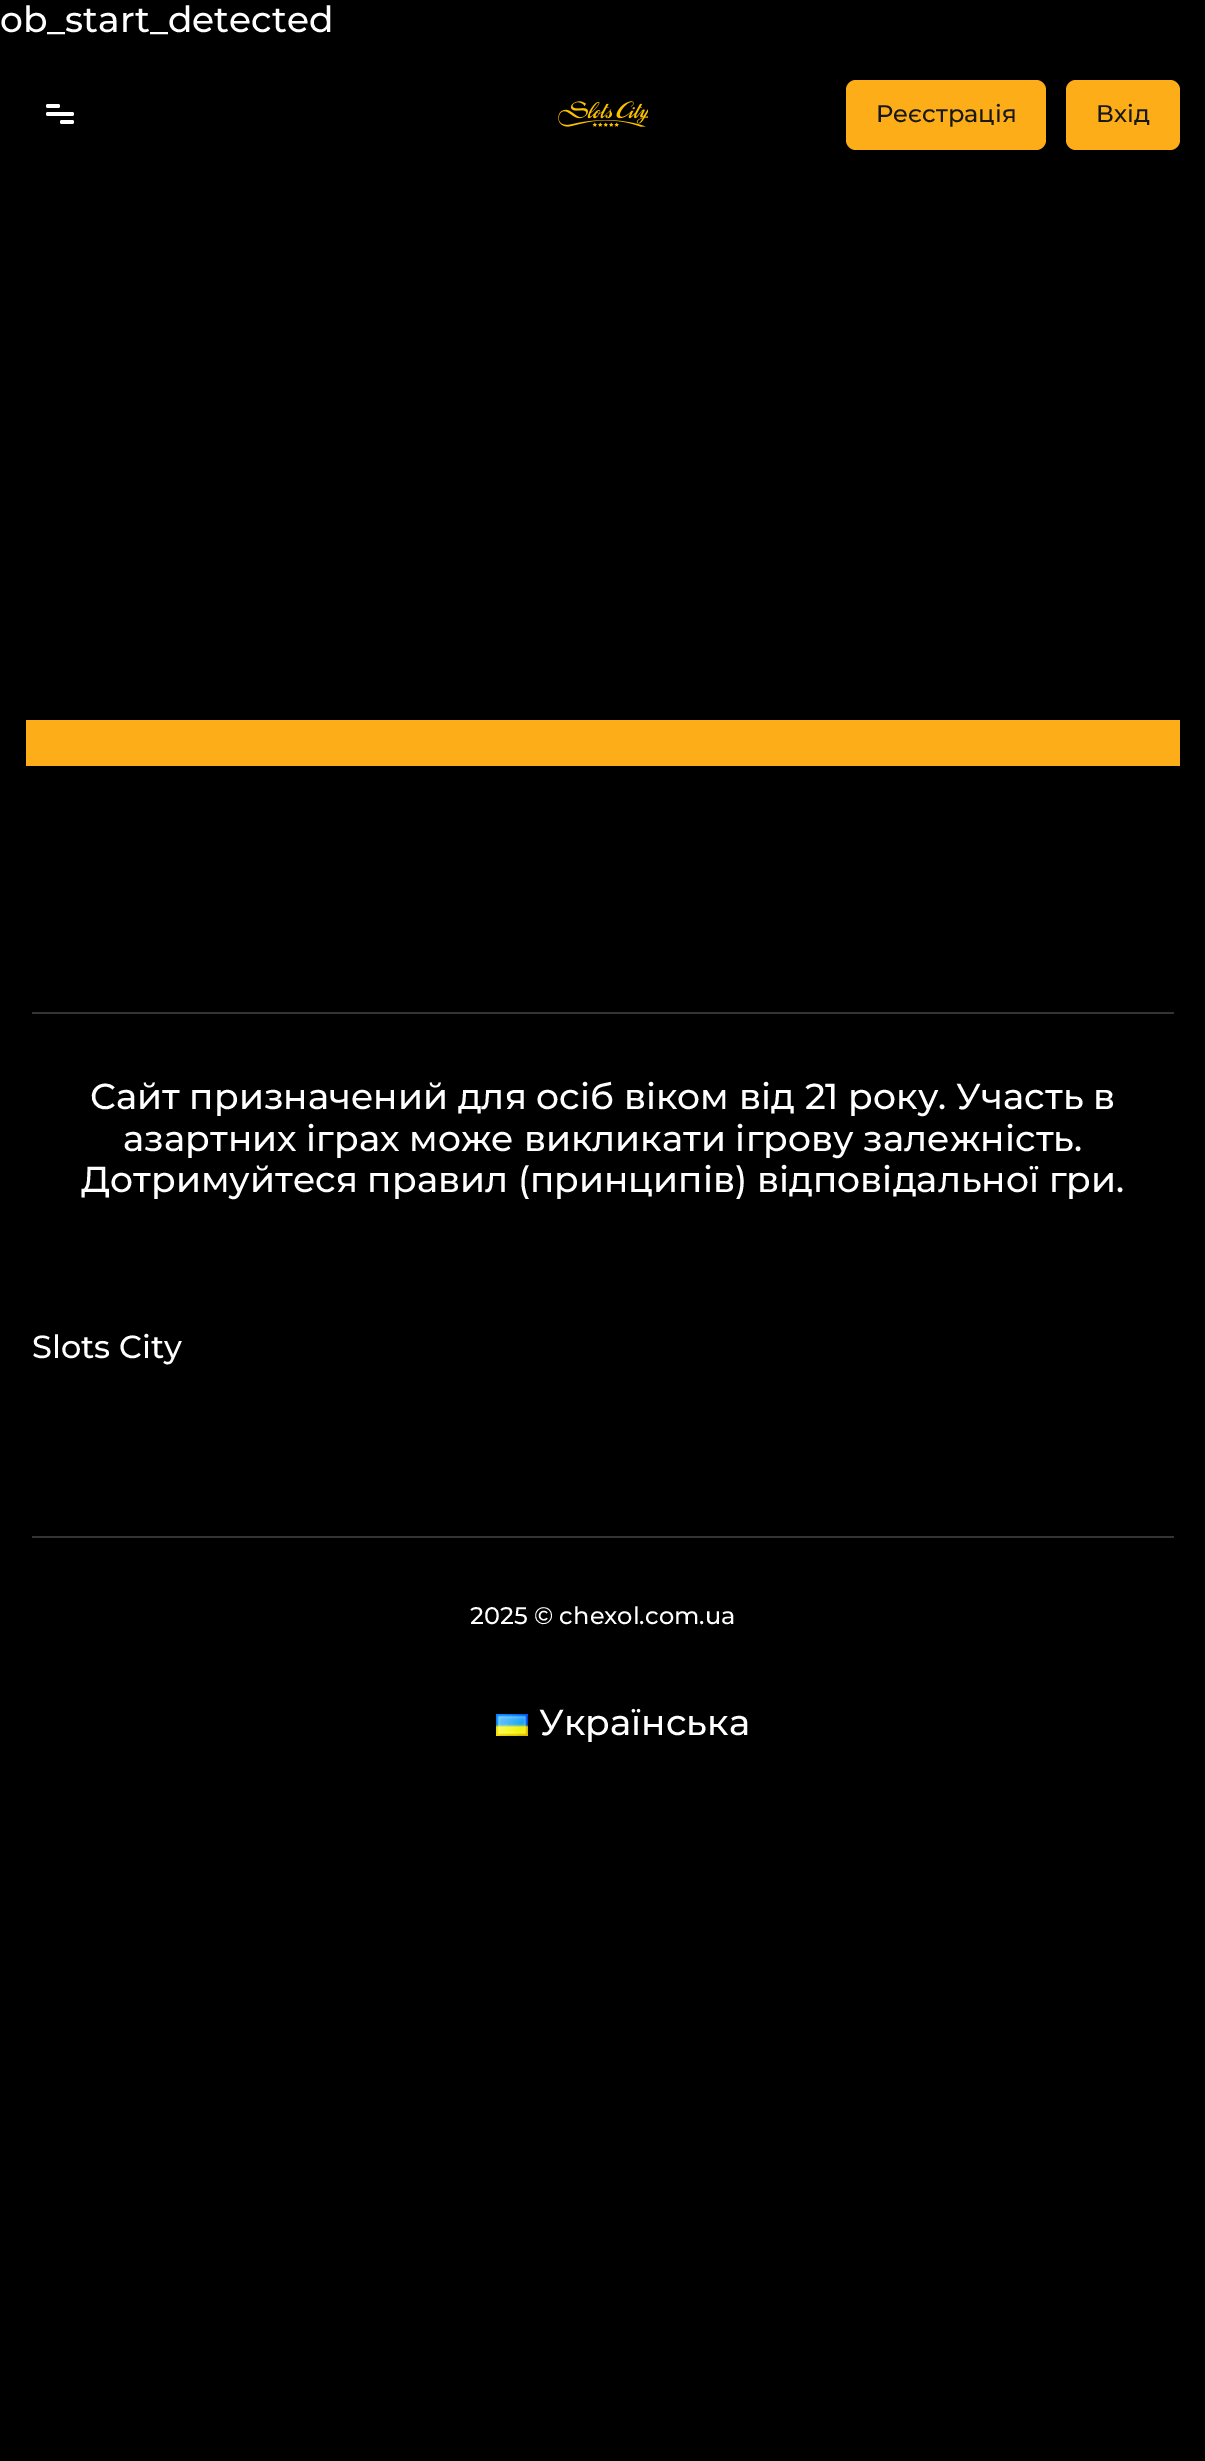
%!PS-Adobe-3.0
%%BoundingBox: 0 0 1205 2461
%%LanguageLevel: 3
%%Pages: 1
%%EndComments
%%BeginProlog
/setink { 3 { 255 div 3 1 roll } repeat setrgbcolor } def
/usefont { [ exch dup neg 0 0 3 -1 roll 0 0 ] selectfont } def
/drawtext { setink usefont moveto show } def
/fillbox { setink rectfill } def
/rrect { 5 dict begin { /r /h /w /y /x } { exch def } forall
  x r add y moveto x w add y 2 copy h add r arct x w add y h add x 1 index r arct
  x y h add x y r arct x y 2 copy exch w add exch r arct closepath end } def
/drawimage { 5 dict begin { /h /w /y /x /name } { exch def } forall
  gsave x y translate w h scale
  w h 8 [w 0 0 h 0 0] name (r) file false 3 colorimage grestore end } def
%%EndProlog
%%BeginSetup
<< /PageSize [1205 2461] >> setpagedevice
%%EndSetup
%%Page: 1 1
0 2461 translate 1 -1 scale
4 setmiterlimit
0 0 1205 2461 0 0 0 fillbox
(ob_start_detected) 0 32 /Montserrat-Medium 36 255 255 255 drawtext
46 112 28 4 2 rrect fill
46 104 14 4 2 rrect fill
60 120 14 4 2 rrect fill
(assets/img1.rgb) 558 101 90 26 drawimage
252 173 23 setink
846 80 200 70 10 rrect fill
(Реєстрація) 876 122 /Montserrat-Medium 24 24 24 24 drawtext
252 173 23 setink
1066 80 114 70 10 rrect fill
(Вхід) 1096 122 /Montserrat-Medium 24 24 24 24 drawtext
26 720 1154 46 252 173 23 fillbox
32 1012 1142 2 51 51 51 fillbox
(Сайт призначений для осіб віком від 21 року. Участь в) 90 1109 /Montserrat-Medium 36 255 255 255 drawtext
(азартних іграх може викликати ігрову залежність.) 123 1151 /Montserrat-Medium 36 255 255 255 drawtext
(Дотримуйтеся правил \(принципів\) відповідальної гри.) 81 1192 /Montserrat-Medium 36 255 255 255 drawtext
(Slots City) 32 1358 /Montserrat-Medium 32 255 255 255 drawtext
32 1536 1142 2 51 51 51 fillbox
(2025 © chexol.com.ua) 470 1624 /Montserrat-Medium 24 255 255 255 drawtext
(assets/img2.rgb) 496 1714 32 22 drawimage
(Українська) 539 1735 /Montserrat-Medium 36 255 255 255 drawtext
showpage
%%EOF
